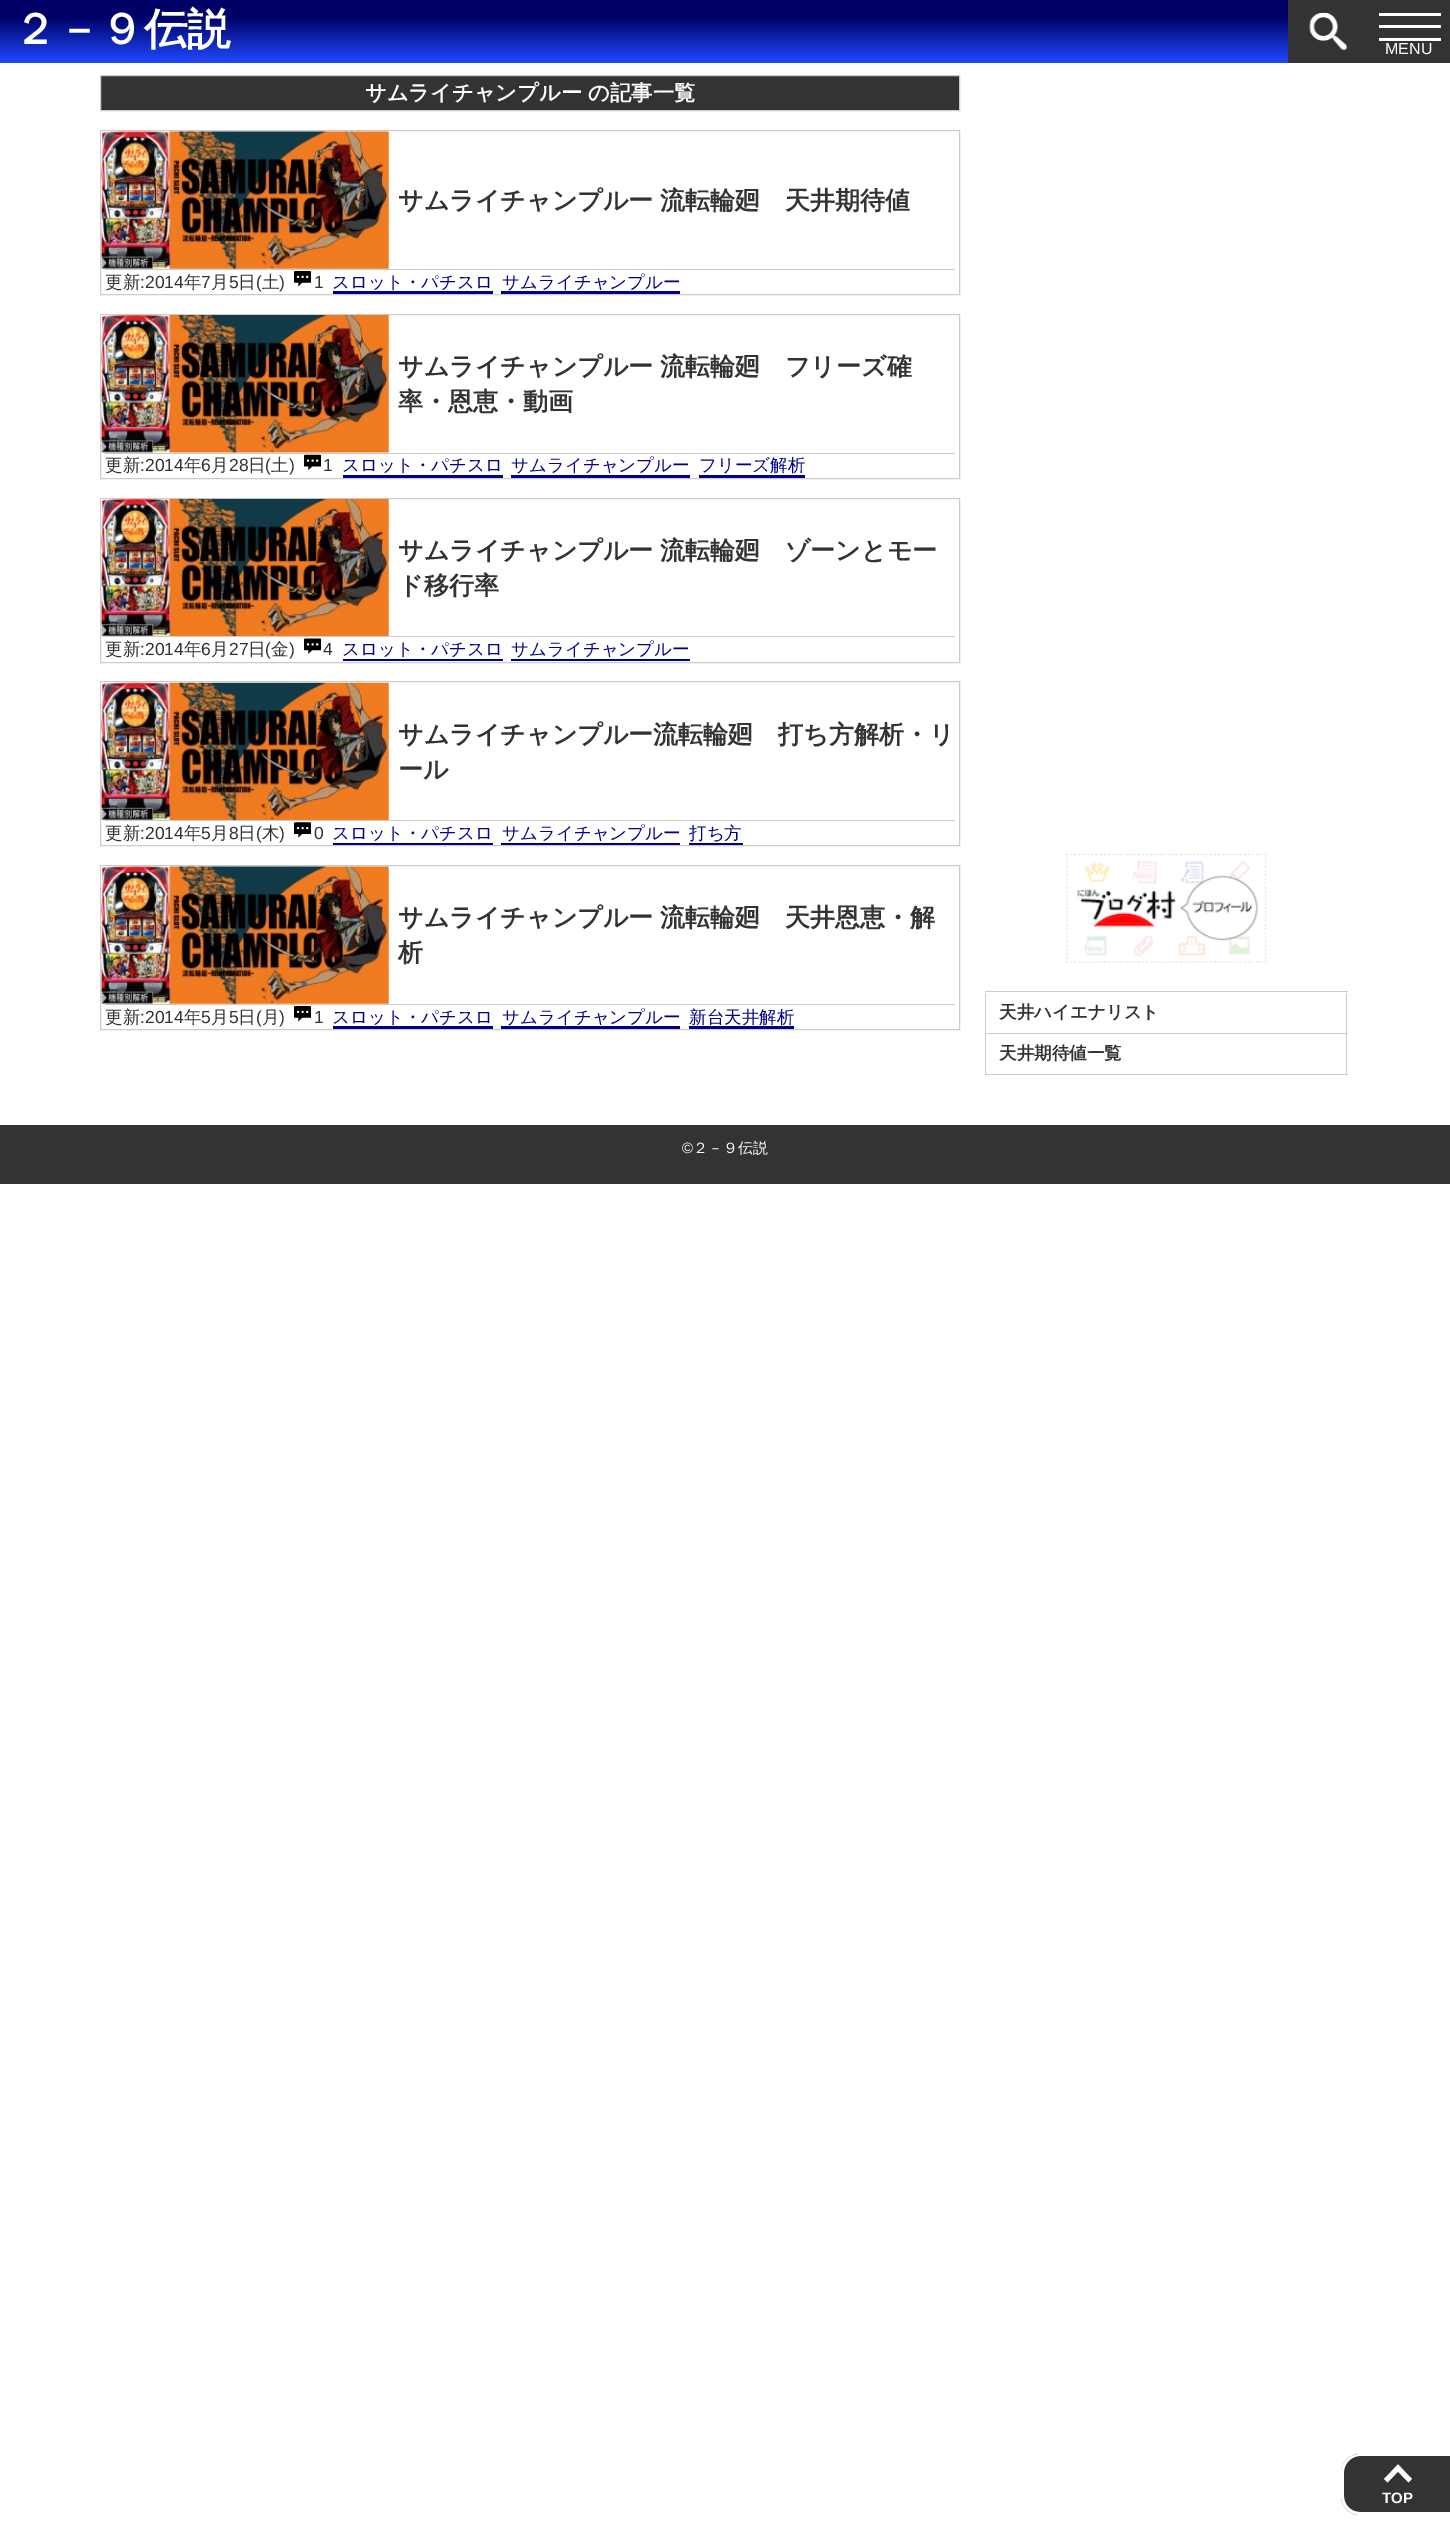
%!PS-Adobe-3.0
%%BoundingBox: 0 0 1450 2527
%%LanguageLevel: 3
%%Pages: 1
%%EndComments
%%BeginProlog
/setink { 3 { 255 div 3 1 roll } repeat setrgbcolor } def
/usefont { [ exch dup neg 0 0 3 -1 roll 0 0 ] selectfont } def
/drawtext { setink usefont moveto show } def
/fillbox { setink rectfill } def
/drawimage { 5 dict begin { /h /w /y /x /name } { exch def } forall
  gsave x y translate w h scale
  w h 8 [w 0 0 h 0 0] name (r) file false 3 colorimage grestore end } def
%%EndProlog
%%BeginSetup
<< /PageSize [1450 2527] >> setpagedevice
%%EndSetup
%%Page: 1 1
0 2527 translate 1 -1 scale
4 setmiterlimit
0 0 1450 2527 255 255 255 fillbox
gsave 0 0 moveto 1288 0 lineto 1288 63 lineto 0 63 lineto closepath clip newpath
<< /ShadingType 2 /ColorSpace /DeviceRGB /Coords [725 0 725 63] /Extend [true true] /Function << /FunctionType 3 /Domain [0 1] /Functions [<< /FunctionType 2 /Domain [0 1] /C0 [0 0 0.4] /C1 [0 0 0.4] /N 1 >> << /FunctionType 2 /Domain [0 1] /C0 [0 0 0.4] /C1 [0.125 0.286 1] /N 1 >>] /Bounds [0.26] /Encode [0 1 0 1] >> >> shfill grestore
(２－９伝説) 13 44 /WenQuanYiZenHei-Bold 43.5 255 255 255 drawtext
1288 0 162 63 51 51 51 fillbox
(assets/img1.rgb) 1309 12 39 38 drawimage
1379 13 62 3 255 255 255 fillbox
1379 25 62 3 255 255 255 fillbox
1379 38 62 3 255 255 255 fillbox
(MENU) 1385 54 /LiberationSans-Regular 16 255 255 255 drawtext
51 51 51 setink
100.5 75.5 moveto 959.5 75.5 lineto 959.5 110.5 lineto 100.5 110.5 lineto closepath gsave fill grestore
204 204 204 setink
stroke
(サムライチャンプルー の記事一覧) 365 100 /WenQuanYiZenHei-Bold 21.25 255 255 255 drawtext
204 204 204 setink
100.5 130.5 859 164 rectstroke
(assets/img2.rgb) 101 131 288 138 drawimage
/WenQuanYiZenHei-Bold 25 usefont
51 51 51 setink
398 209 moveto -1 0 32 (サムライチャンプルー 流転輪廻　天井期待値) widthshow
105 269 850 1 204 204 204 fillbox
(更新) 105 288 /WenQuanYiZenHei-Medium 17.5 51 51 51 drawtext
(:2014) 140 288 /LiberationSans-Regular 17.5 51 51 51 drawtext
(年) 184 288 /WenQuanYiZenHei-Medium 17.5 51 51 51 drawtext
(7) 201 288 /LiberationSans-Regular 17.5 51 51 51 drawtext
(月) 211 288 /WenQuanYiZenHei-Medium 17.5 51 51 51 drawtext
(5) 229 288 /LiberationSans-Regular 17.5 51 51 51 drawtext
(日) 238 288 /WenQuanYiZenHei-Medium 17.5 51 51 51 drawtext
(\() 256 288 /LiberationSans-Regular 17.5 51 51 51 drawtext
(土) 262 288 /WenQuanYiZenHei-Medium 17.5 51 51 51 drawtext
(\)) 279 288 /LiberationSans-Regular 17.5 51 51 51 drawtext
(assets/img3.rgb) 294 271 18 16 drawimage
(1) 314 288 /LiberationSans-Regular 17.5 51 51 51 drawtext
(スロット・パチスロ) 332 288 /WenQuanYiZenHei-Medium 17.5 0 0 139 drawtext
333 291 160 3 0 0 139 fillbox
(サムライチャンプルー) 502 288 /WenQuanYiZenHei-Medium 17.5 0 0 139 drawtext
501 291 179 3 0 0 139 fillbox
204 204 204 setink
100.5 314.5 859 164 rectstroke
(assets/img4.rgb) 101 315 288 138 drawimage
/WenQuanYiZenHei-Bold 25 usefont
51 51 51 setink
398 375 moveto -1 0 32 (サムライチャンプルー 流転輪廻　フリーズ確) widthshow
(率・恩恵・動画) 398 410 /WenQuanYiZenHei-Bold 25 51 51 51 drawtext
105 453 850 1 204 204 204 fillbox
(更新) 105 471 /WenQuanYiZenHei-Medium 17.5 51 51 51 drawtext
(:2014) 140 471 /LiberationSans-Regular 17.5 51 51 51 drawtext
(年) 184 471 /WenQuanYiZenHei-Medium 17.5 51 51 51 drawtext
(6) 201 471 /LiberationSans-Regular 17.5 51 51 51 drawtext
(月) 211 471 /WenQuanYiZenHei-Medium 17.5 51 51 51 drawtext
(28) 229 471 /LiberationSans-Regular 17.5 51 51 51 drawtext
(日) 248 471 /WenQuanYiZenHei-Medium 17.5 51 51 51 drawtext
(\() 265 471 /LiberationSans-Regular 17.5 51 51 51 drawtext
(土) 271 471 /WenQuanYiZenHei-Medium 17.5 51 51 51 drawtext
(\)) 289 471 /LiberationSans-Regular 17.5 51 51 51 drawtext
(assets/img5.rgb) 304 454 18 17 drawimage
(1) 323 471 /LiberationSans-Regular 17.5 51 51 51 drawtext
(スロット・パチスロ) 342 471 /WenQuanYiZenHei-Medium 17.5 0 0 139 drawtext
343 475 160 3 0 0 139 fillbox
(サムライチャンプルー) 511 471 /WenQuanYiZenHei-Medium 17.5 0 0 139 drawtext
511 475 179 3 0 0 139 fillbox
(フリーズ解析) 699 471 /WenQuanYiZenHei-Medium 17.5 0 0 139 drawtext
699 475 106 3 0 0 139 fillbox
204 204 204 setink
100.5 498.5 859 164 rectstroke
(assets/img6.rgb) 101 498 288 139 drawimage
/WenQuanYiZenHei-Bold 25 usefont
51 51 51 setink
398 559 moveto -1 0 32 (サムライチャンプルー 流転輪廻　ゾーンとモー) widthshow
(ド移行率) 398 594 /WenQuanYiZenHei-Bold 25 51 51 51 drawtext
105 636 850 1 204 204 204 fillbox
(更新) 105 655 /WenQuanYiZenHei-Medium 17.5 51 51 51 drawtext
(:2014) 140 655 /LiberationSans-Regular 17.5 51 51 51 drawtext
(年) 184 655 /WenQuanYiZenHei-Medium 17.5 51 51 51 drawtext
(6) 201 655 /LiberationSans-Regular 17.5 51 51 51 drawtext
(月) 211 655 /WenQuanYiZenHei-Medium 17.5 51 51 51 drawtext
(27) 229 655 /LiberationSans-Regular 17.5 51 51 51 drawtext
(日) 248 655 /WenQuanYiZenHei-Medium 17.5 51 51 51 drawtext
(\() 265 655 /LiberationSans-Regular 17.5 51 51 51 drawtext
(金) 271 655 /WenQuanYiZenHei-Medium 17.5 51 51 51 drawtext
(\)) 289 655 /LiberationSans-Regular 17.5 51 51 51 drawtext
(assets/img7.rgb) 304 638 18 16 drawimage
(4) 323 655 /LiberationSans-Regular 17.5 51 51 51 drawtext
(スロット・パチスロ) 342 655 /WenQuanYiZenHei-Medium 17.5 0 0 139 drawtext
343 659 160 2 0 0 139 fillbox
(サムライチャンプルー) 511 655 /WenQuanYiZenHei-Medium 17.5 0 0 139 drawtext
511 659 179 2 0 0 139 fillbox
204 204 204 setink
100.5 681.5 859 164 rectstroke
(assets/img8.rgb) 101 682 288 138 drawimage
(サムライチャンプルー流転輪廻　打ち方解析・リ) 398 743 /WenQuanYiZenHei-Bold 25 51 51 51 drawtext
(ール) 398 778 /WenQuanYiZenHei-Bold 25 51 51 51 drawtext
105 820 850 1 204 204 204 fillbox
(更新) 105 839 /WenQuanYiZenHei-Medium 17.5 51 51 51 drawtext
(:2014) 140 839 /LiberationSans-Regular 17.5 51 51 51 drawtext
(年) 184 839 /WenQuanYiZenHei-Medium 17.5 51 51 51 drawtext
(5) 201 839 /LiberationSans-Regular 17.5 51 51 51 drawtext
(月) 211 839 /WenQuanYiZenHei-Medium 17.5 51 51 51 drawtext
(8) 229 839 /LiberationSans-Regular 17.5 51 51 51 drawtext
(日) 238 839 /WenQuanYiZenHei-Medium 17.5 51 51 51 drawtext
(\() 256 839 /LiberationSans-Regular 17.5 51 51 51 drawtext
(木) 262 839 /WenQuanYiZenHei-Medium 17.5 51 51 51 drawtext
(\)) 279 839 /LiberationSans-Regular 17.5 51 51 51 drawtext
(assets/img9.rgb) 294 822 18 16 drawimage
(0) 314 839 /LiberationSans-Regular 17.5 51 51 51 drawtext
(スロット・パチスロ) 332 839 /WenQuanYiZenHei-Medium 17.5 0 0 139 drawtext
333 843 160 2 0 0 139 fillbox
(サムライチャンプルー) 502 839 /WenQuanYiZenHei-Medium 17.5 0 0 139 drawtext
501 843 179 2 0 0 139 fillbox
(打ち方) 689 839 /WenQuanYiZenHei-Medium 17.5 0 0 139 drawtext
689 843 54 2 0 0 139 fillbox
204 204 204 setink
100.5 865.5 859 164 rectstroke
(assets/img2.rgb) 101 866 288 138 drawimage
/WenQuanYiZenHei-Bold 25 usefont
51 51 51 setink
398 926 moveto -1 0 32 (サムライチャンプルー 流転輪廻　天井恩恵・解) widthshow
(析) 398 961 /WenQuanYiZenHei-Bold 25 51 51 51 drawtext
105 1004 850 1 204 204 204 fillbox
(更新) 105 1023 /WenQuanYiZenHei-Medium 17.5 51 51 51 drawtext
(:2014) 140 1023 /LiberationSans-Regular 17.5 51 51 51 drawtext
(年) 184 1023 /WenQuanYiZenHei-Medium 17.5 51 51 51 drawtext
(5) 201 1023 /LiberationSans-Regular 17.5 51 51 51 drawtext
(月) 211 1023 /WenQuanYiZenHei-Medium 17.5 51 51 51 drawtext
(5) 229 1023 /LiberationSans-Regular 17.5 51 51 51 drawtext
(日) 238 1023 /WenQuanYiZenHei-Medium 17.5 51 51 51 drawtext
(\() 256 1023 /LiberationSans-Regular 17.5 51 51 51 drawtext
(月) 262 1023 /WenQuanYiZenHei-Medium 17.5 51 51 51 drawtext
(\)) 279 1023 /LiberationSans-Regular 17.5 51 51 51 drawtext
(assets/img3.rgb) 294 1006 18 16 drawimage
(1) 314 1023 /LiberationSans-Regular 17.5 51 51 51 drawtext
(スロット・パチスロ) 332 1023 /WenQuanYiZenHei-Medium 17.5 0 0 139 drawtext
333 1026 160 3 0 0 139 fillbox
(サムライチャンプルー) 502 1023 /WenQuanYiZenHei-Medium 17.5 0 0 139 drawtext
501 1026 179 3 0 0 139 fillbox
(新台天井解析) 689 1023 /WenQuanYiZenHei-Medium 17.5 0 0 139 drawtext
689 1026 105 3 0 0 139 fillbox
(assets/img10.rgb) 1066 853 201 110 drawimage
985 991 363 1 204 204 204 fillbox
1346 993 1 82 204 204 204 fillbox
985 1033 363 1 204 204 204 fillbox
985 993 1 41 204 204 204 fillbox
(天井ハイエナリスト) 999 1018 /WenQuanYiZenHei-Bold 17.5 51 51 51 drawtext
985 1074 363 1 204 204 204 fillbox
985 1034 1 41 204 204 204 fillbox
(天井期待値一覧) 999 1059 /WenQuanYiZenHei-Bold 17.5 51 51 51 drawtext
0 1125 1450 59 51 51 51 fillbox
(©) 682 1153 /LiberationSans-Regular 15 255 255 255 drawtext
(２－９伝説) 693 1153 /WenQuanYiZenHei-Medium 15 255 255 255 drawtext
51 51 51 setink
1360 2454 moveto 1450 2454 lineto 1450 2515 lineto 1360 2515 lineto 1349.5 2515 1341 2506.5 1341 2496 curveto 1341 2473 lineto 1341 2462.5 1349.5 2454 1360 2454 curveto closepath fill
255 255 255 setink
1360 2454 moveto 1450 2454 lineto 1450 2515 lineto 1360 2515 lineto 1350 2515 1341 2507 1341 2496 curveto 1341 2472 lineto 1341 2462 1350 2454 1360 2454 curveto closepath 1360 2456 moveto 1450 2456 lineto 1450 2512 lineto 1360 2512 lineto 1351 2512 1344 2505 1344 2496 curveto 1344 2472 lineto 1344 2464 1351 2456 1360 2456 curveto closepath eofill
1387.5 2482.5 moveto 1384 2479 lineto 1398 2464.5 lineto 1401.5 2468 lineto closepath fill
1408.5 2482.5 moveto 1394.5 2468 lineto 1398 2464.5 lineto 1412 2479 lineto closepath fill
(TOP) 1382 2503 /LiberationSans-Bold 15 255 255 255 drawtext
showpage
%%EOF
